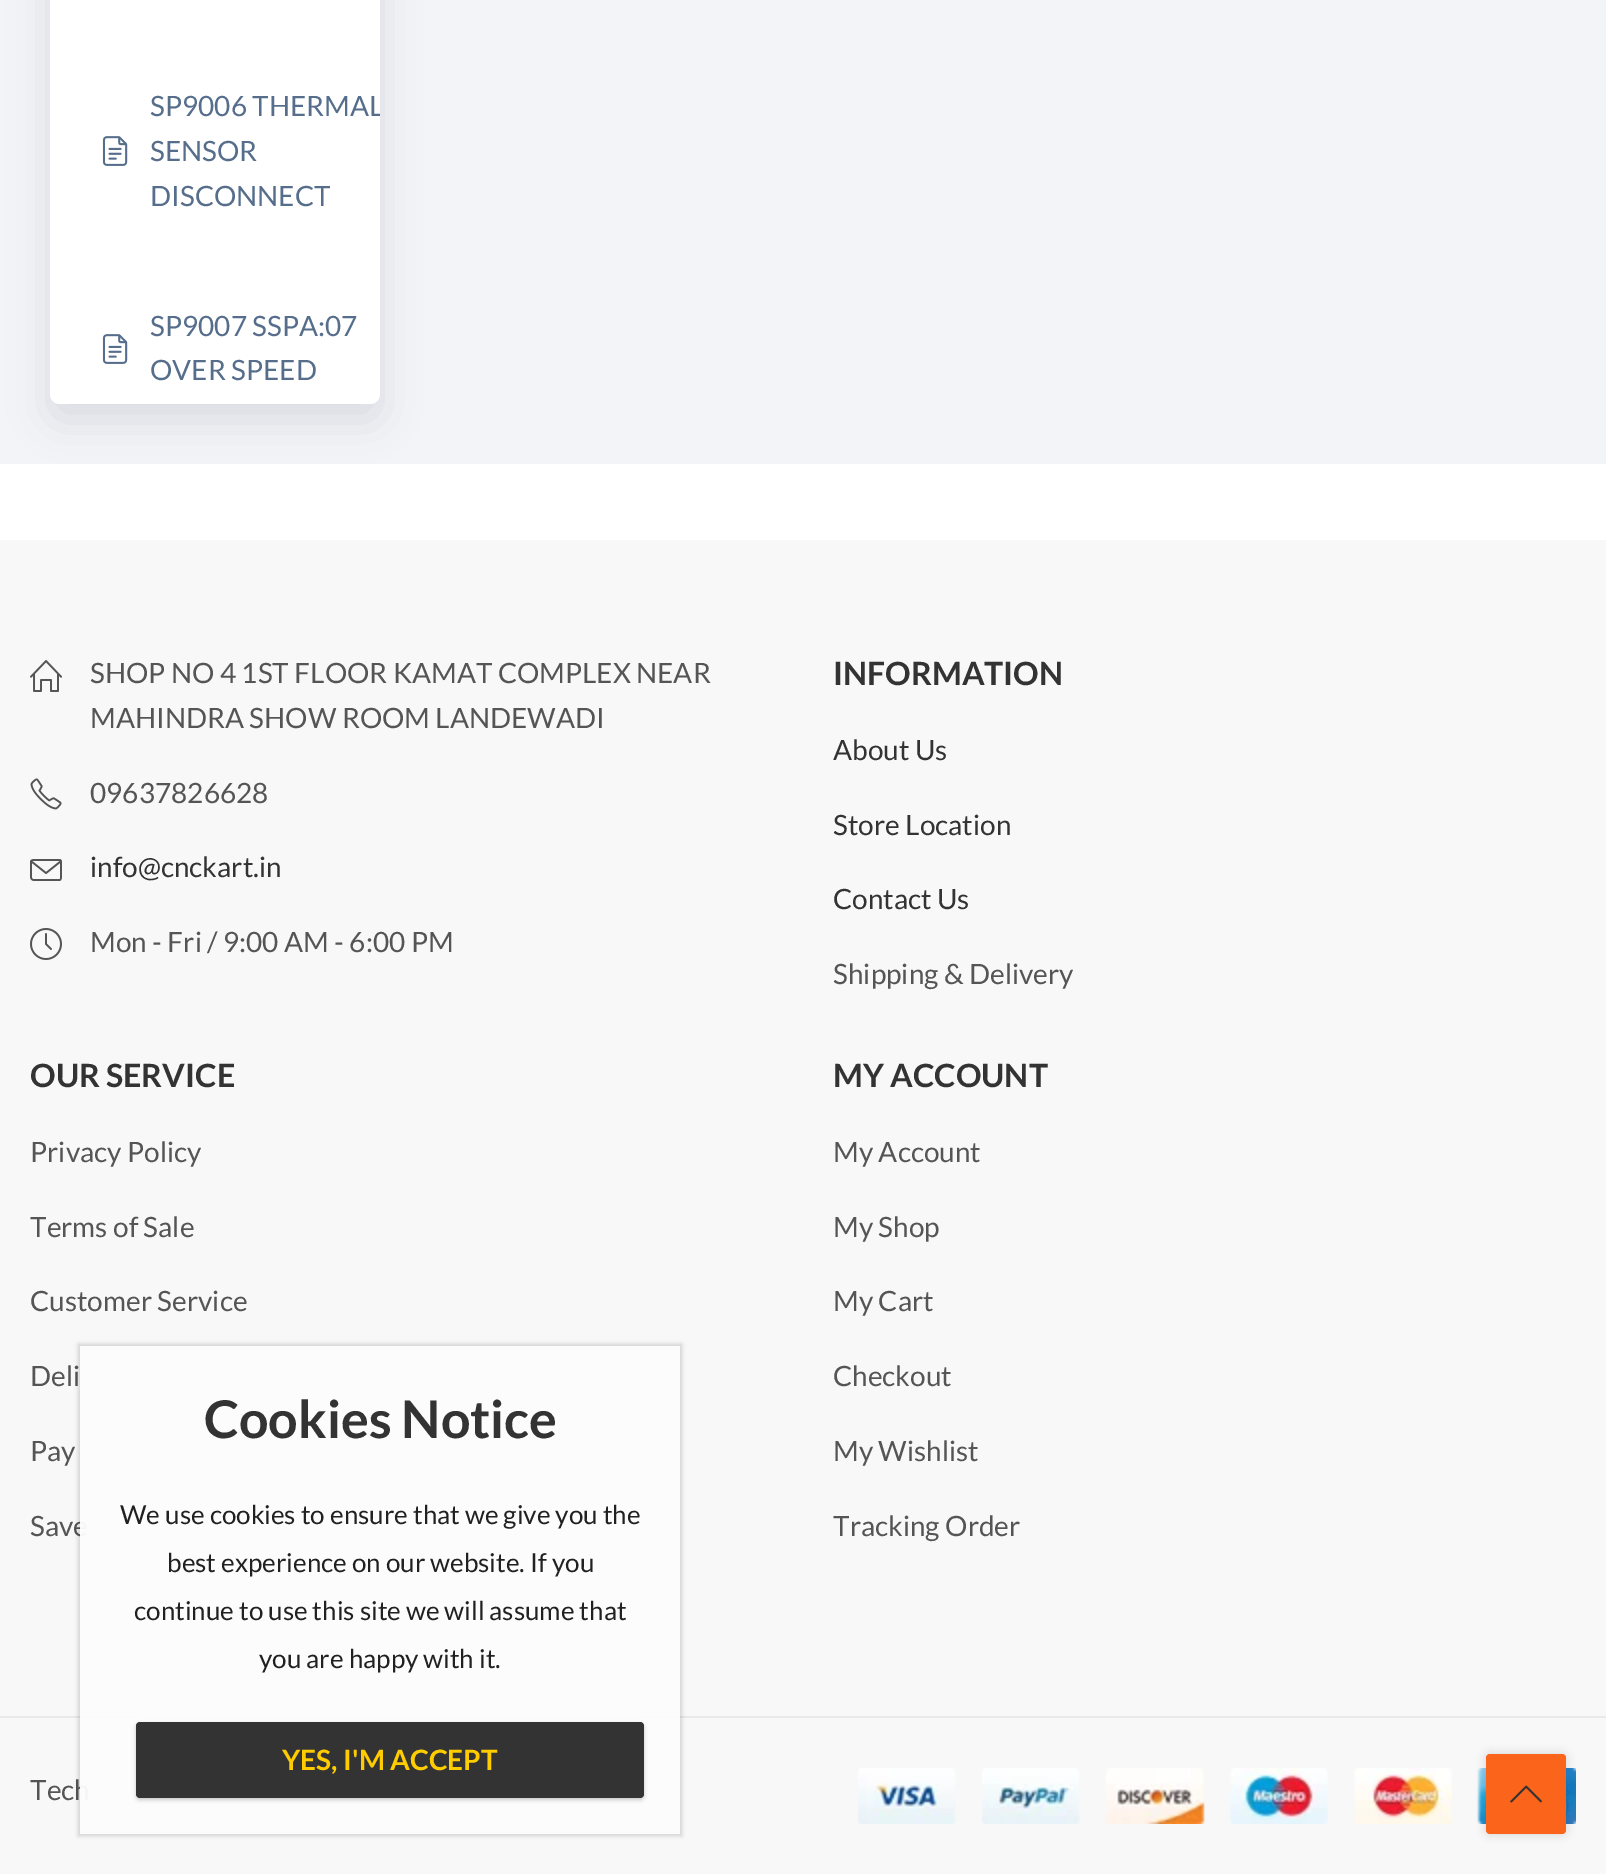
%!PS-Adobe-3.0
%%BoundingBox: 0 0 1606 1874
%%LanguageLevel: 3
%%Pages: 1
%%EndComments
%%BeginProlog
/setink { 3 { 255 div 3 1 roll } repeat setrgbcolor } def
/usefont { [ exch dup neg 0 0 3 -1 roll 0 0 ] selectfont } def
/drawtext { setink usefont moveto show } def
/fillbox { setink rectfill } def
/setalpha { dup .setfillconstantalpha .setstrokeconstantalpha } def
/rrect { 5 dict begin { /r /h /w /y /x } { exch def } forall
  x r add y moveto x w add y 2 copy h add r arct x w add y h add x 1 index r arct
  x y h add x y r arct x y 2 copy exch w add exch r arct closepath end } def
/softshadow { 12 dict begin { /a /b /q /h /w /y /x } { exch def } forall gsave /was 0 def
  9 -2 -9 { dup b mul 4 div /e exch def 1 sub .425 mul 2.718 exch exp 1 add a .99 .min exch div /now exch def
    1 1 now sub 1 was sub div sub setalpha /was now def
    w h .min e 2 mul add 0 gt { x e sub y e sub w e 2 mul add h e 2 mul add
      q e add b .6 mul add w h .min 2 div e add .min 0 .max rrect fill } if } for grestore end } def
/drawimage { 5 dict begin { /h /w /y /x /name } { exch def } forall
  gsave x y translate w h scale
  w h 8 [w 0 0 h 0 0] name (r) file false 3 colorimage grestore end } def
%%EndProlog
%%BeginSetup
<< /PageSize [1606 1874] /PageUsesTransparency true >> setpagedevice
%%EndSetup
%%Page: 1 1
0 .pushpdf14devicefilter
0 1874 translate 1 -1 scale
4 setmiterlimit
0 0 1606 1874 255 255 255 fillbox
0 0 1606 464 242 244 247 fillbox
0 1 35 setink
50 -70 330 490 10 20 0.1 softshadow
255 255 255 setink
50 -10 moveto 380 -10 lineto 380 394 lineto 380 399.5 375.5 404 370 404 curveto 60 404 lineto 54.5 404 50 399.5 50 394 curveto closepath fill
(assets/img1.rgb) 102 136 26 30 drawimage
gsave
50 -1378 330 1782 10 rrect clip newpath
(SP9006 THERMAL) 150 116 /Lato-Regular 28 86 110 139 drawtext
grestore
(SENSOR) 150 161 /Lato-Regular 28 86 110 139 drawtext
(DISCONNECT) 150 206 /Lato-Regular 28 86 110 139 drawtext
(assets/img1.rgb) 102 334 26 30 drawimage
(SP9007 SSPA:07) 150 336 /Lato-Regular 28 86 110 139 drawtext
(OVER SPEED) 150 380 /Lato-Regular 28 86 110 139 drawtext
0 540 1606 1176 248 248 248 fillbox
(assets/img2.rgb) 30 660 32 32 drawimage
(SHOP NO 4 1ST FLOOR KAMAT COMPLEX NEAR) 90 683 /Lato-Regular 28 85 85 85 drawtext
(MAHINDRA SHOW ROOM LANDEWADI) 90 728 /Lato-Regular 28 85 85 85 drawtext
(assets/img3.rgb) 30 778 32 32 drawimage
(09637826628) 90 803 /Lato-Regular 28 85 85 85 drawtext
(assets/img4.rgb) 30 859 32 22 drawimage
(info@cnckart.in) 90 877 /Lato-Regular 28 51 51 51 drawtext
(assets/img5.rgb) 30 928 32 32 drawimage
(Mon - Fri / 9:00 AM - 6:00 PM) 90 952 /Lato-Regular 28 85 85 85 drawtext
(INFORMATION) 833 685 /Lato-Bold 32 51 51 51 drawtext
(About Us) 833 760 /Lato-Regular 28 51 51 51 drawtext
(Store Location) 833 835 /Lato-Regular 28 51 51 51 drawtext
(Contact Us) 833 909 /Lato-Regular 28 51 51 51 drawtext
(Shipping & Delivery) 833 984 /Lato-Regular 28 85 85 85 drawtext
(OUR SERVICE) 30 1087 /Lato-Bold 32 51 51 51 drawtext
(Privacy Policy) 30 1162 /Lato-Regular 28 85 85 85 drawtext
(Terms of Sale) 30 1237 /Lato-Regular 28 85 85 85 drawtext
(Customer Service) 30 1311 /Lato-Regular 28 85 85 85 drawtext
(Deli) 30 1386 /Lato-Regular 28 85 85 85 drawtext
(Pay) 30 1461 /Lato-Regular 28 85 85 85 drawtext
(Save) 30 1536 /Lato-Regular 28 85 85 85 drawtext
(MY ACCOUNT) 833 1087 /Lato-Bold 32 51 51 51 drawtext
(My Account) 833 1162 /Lato-Regular 28 85 85 85 drawtext
(My Shop) 833 1237 /Lato-Regular 28 85 85 85 drawtext
(My Cart) 833 1311 /Lato-Regular 28 85 85 85 drawtext
(Checkout) 833 1386 /Lato-Regular 28 85 85 85 drawtext
(My Wishlist) 833 1461 /Lato-Regular 28 85 85 85 drawtext
(Tracking Order) 833 1536 /Lato-Regular 28 85 85 85 drawtext
0 1718 1606 156 248 248 248 fillbox
0 1716 1606 2 233 233 233 fillbox
(Tech) 30 1800 /Lato-Regular 28 85 85 85 drawtext
(assets/img6.rgb) 858 1768 718 56 drawimage
gsave
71 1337 moveto 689 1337 lineto 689 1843 lineto 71 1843 lineto closepath 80 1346 moveto 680 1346 lineto 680 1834 lineto 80 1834 lineto closepath eoclip newpath
0 0 0 setink
78 1344 604 492 0 2 0.15 softshadow
grestore
0.96 setalpha
80 1346 600 488 252 252 252 fillbox
1 setalpha
(Cookies Notice) 204 1438 /Lato-Bold 52 51 51 51 drawtext
(We use cookies to ensure that we give you the) 120 1524 /Lato-Regular 26 33 33 33 drawtext
(best experience on our website. If you) 167 1572 /Lato-Regular 26 33 33 33 drawtext
(continue to use this site we will assume that) 134 1620 /Lato-Regular 26 33 33 33 drawtext
(you are happy with it.) 259 1668 /Lato-Regular 26 33 33 33 drawtext
0 0 0 setink
136 1724 508 76 4 2 0.2 softshadow
51 51 51 setink
136 1722 508 76 4 rrect fill
(YES, I'M ACCEPT) 282 1770 /Lato-Bold 28 255 204 0 drawtext
0 0 0 setink
1486 1754 80 80 4 5 0.15 softshadow
251 100 27 setink
1486 1754 80 80 4 rrect fill
(assets/img7.rgb) 1510 1785 32 18 drawimage
.poppdf14devicefilter showpage
%%EOF
